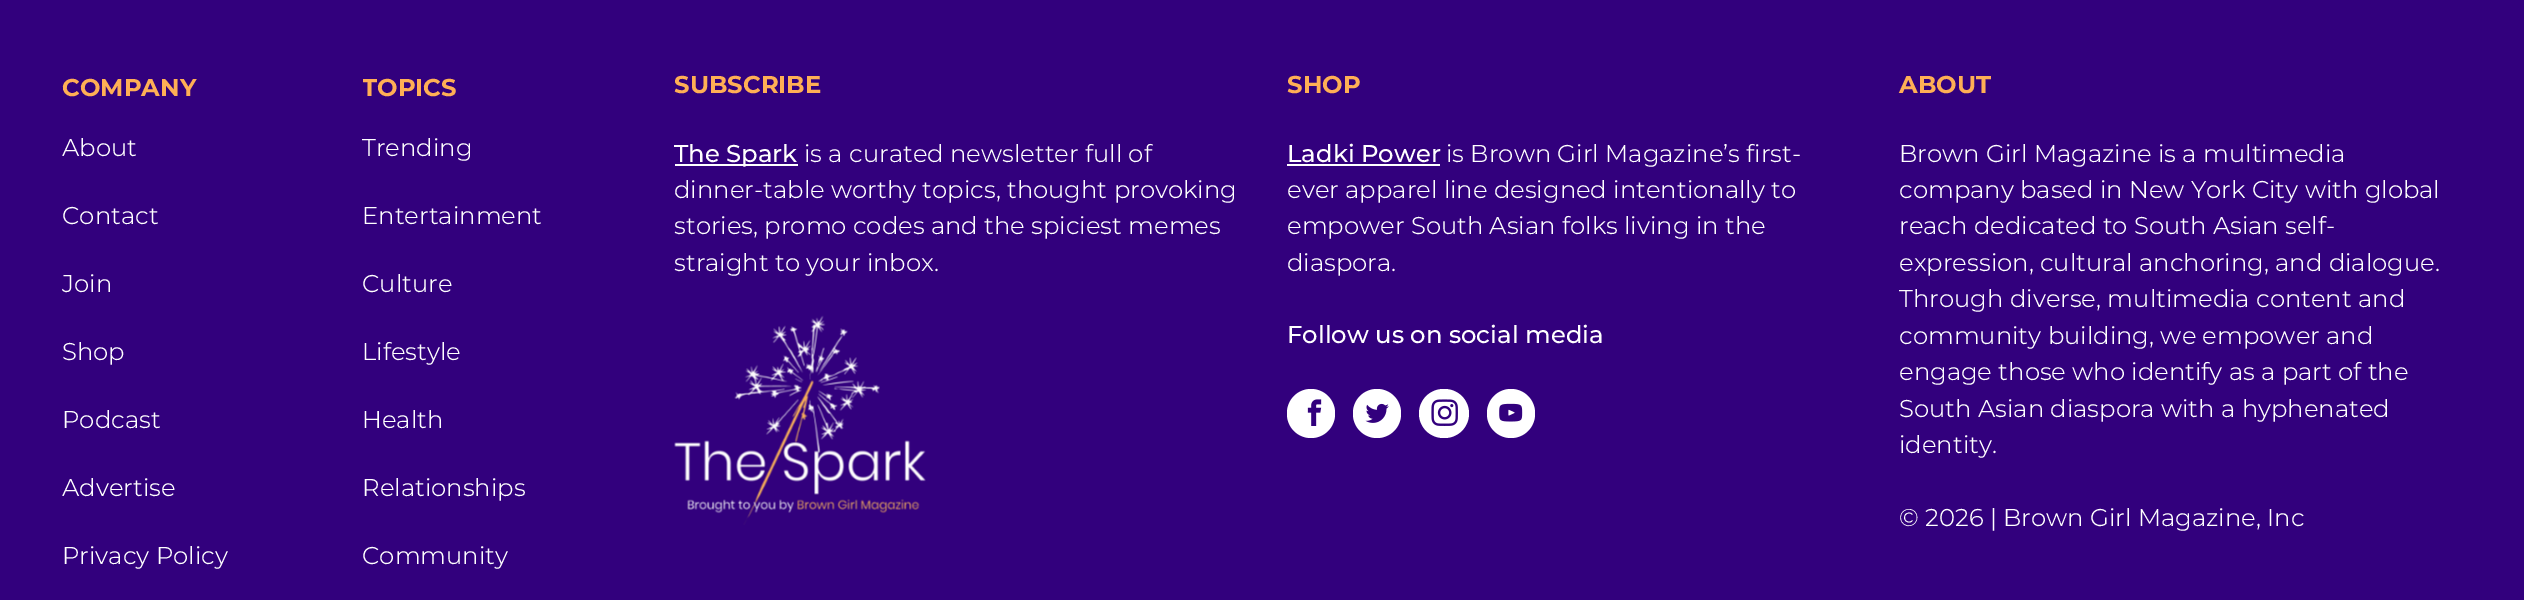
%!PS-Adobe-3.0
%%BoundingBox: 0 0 2524 600
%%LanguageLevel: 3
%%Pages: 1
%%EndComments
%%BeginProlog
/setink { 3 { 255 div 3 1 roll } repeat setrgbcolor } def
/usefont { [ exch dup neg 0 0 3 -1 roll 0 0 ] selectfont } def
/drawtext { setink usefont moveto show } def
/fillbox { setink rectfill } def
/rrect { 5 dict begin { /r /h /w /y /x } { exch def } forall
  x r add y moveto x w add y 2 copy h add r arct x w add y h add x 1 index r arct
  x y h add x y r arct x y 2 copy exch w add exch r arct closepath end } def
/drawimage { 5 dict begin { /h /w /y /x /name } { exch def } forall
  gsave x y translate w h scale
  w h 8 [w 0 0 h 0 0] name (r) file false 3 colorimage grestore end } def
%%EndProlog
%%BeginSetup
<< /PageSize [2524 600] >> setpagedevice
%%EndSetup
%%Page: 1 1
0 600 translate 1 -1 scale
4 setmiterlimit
0 0 2524 600 50 0 125 fillbox
(COMPANY) 62 96 /Montserrat-Bold 24.3 255 175 85 drawtext
(About) 62 156 /Montserrat-Light 24.3 255 255 255 drawtext
(Contact) 62 224 /Montserrat-Light 24.3 255 255 255 drawtext
(Join) 62 292 /Montserrat-Light 24.3 255 255 255 drawtext
(Shop) 62 360 /Montserrat-Light 24.3 255 255 255 drawtext
(Podcast) 62 428 /Montserrat-Light 24.3 255 255 255 drawtext
(Advertise) 62 496 /Montserrat-Light 24.3 255 255 255 drawtext
(Privacy Policy) 62 564 /Montserrat-Light 24.3 255 255 255 drawtext
gsave
363 69 263 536 rectclip
(TOPICS) 362 96 /Montserrat-Bold 24.3 255 175 85 drawtext
grestore
(Trending) 362 156 /Montserrat-Light 24.3 255 255 255 drawtext
(Entertainment) 362 224 /Montserrat-Light 24.3 255 255 255 drawtext
(Culture) 362 292 /Montserrat-Light 24.3 255 255 255 drawtext
(Lifestyle) 362 360 /Montserrat-Light 24.3 255 255 255 drawtext
(Health) 362 428 /Montserrat-Light 24.3 255 255 255 drawtext
(Relationships) 362 496 /Montserrat-Light 24.3 255 255 255 drawtext
(Community) 362 564 /Montserrat-Light 24.3 255 255 255 drawtext
(SUBSCRIBE) 674 93 /Montserrat-Bold 24.3 255 175 85 drawtext
675 164 123 2 255 255 255 fillbox
(The Spark) 674 162 /Montserrat-Medium 24.3 255 255 255 drawtext
(is a curated newsletter full of) 804 162 /Montserrat-Light 24.3 255 255 255 drawtext
(dinner-table worthy topics, thought provoking) 674 198 /Montserrat-Light 24.3 255 255 255 drawtext
(stories, promo codes and the spiciest memes) 674 234 /Montserrat-Light 24.3 255 255 255 drawtext
(straight to your inbox.) 674 271 /Montserrat-Light 24.3 255 255 255 drawtext
(assets/img1.rgb) 674 315 252 210 drawimage
(SHOP) 1287 93 /Montserrat-Bold 24.3 255 175 85 drawtext
(Ladki Power) 1287 162 /Montserrat-Medium 24.3 255 255 255 drawtext
1287 164 153 2 255 255 255 fillbox
(is Brown Girl Magazine’s first-) 1446 162 /Montserrat-Light 24.3 255 255 255 drawtext
(ever apparel line designed intentionally to) 1287 198 /Montserrat-Light 24.3 255 255 255 drawtext
(empower South Asian folks living in the) 1287 234 /Montserrat-Light 24.3 255 255 255 drawtext
(diaspora.) 1287 271 /Montserrat-Light 24.3 255 255 255 drawtext
(Follow us on social media) 1287 343 /Montserrat-Medium 24.3 255 255 255 drawtext
1287 389 48 49 24 rrect fill
(assets/img2.rgb) 1307 399 15 27 drawimage
1353 389 48 49 24 rrect fill
(assets/img3.rgb) 1365 403 24 20 drawimage
1419 389 50 49 24.5 rrect fill
(assets/img4.rgb) 1431 399 27 27 drawimage
1487 389 48 49 24 rrect fill
(assets/img5.rgb) 1499 403 24 19 drawimage
(ABOUT) 1899 93 /Montserrat-Bold 24.3 255 175 85 drawtext
(Brown Girl Magazine is a multimedia) 1899 162 /Montserrat-Light 24.3 255 255 255 drawtext
(company based in New York City with global) 1899 198 /Montserrat-Light 24.3 255 255 255 drawtext
(reach dedicated to South Asian self-) 1899 234 /Montserrat-Light 24.3 255 255 255 drawtext
(expression, cultural anchoring, and dialogue.) 1899 271 /Montserrat-Light 24.3 255 255 255 drawtext
(Through diverse, multimedia content and) 1899 307 /Montserrat-Light 24.3 255 255 255 drawtext
(community building, we empower and) 1899 344 /Montserrat-Light 24.3 255 255 255 drawtext
(engage those who identify as a part of the) 1899 380 /Montserrat-Light 24.3 255 255 255 drawtext
(South Asian diaspora with a hyphenated) 1899 417 /Montserrat-Light 24.3 255 255 255 drawtext
(identity.) 1899 453 /Montserrat-Light 24.3 255 255 255 drawtext
(© 2026 | Brown Girl Magazine, Inc) 1899 526 /Montserrat-Light 24.3 255 255 255 drawtext
showpage
%%EOF
